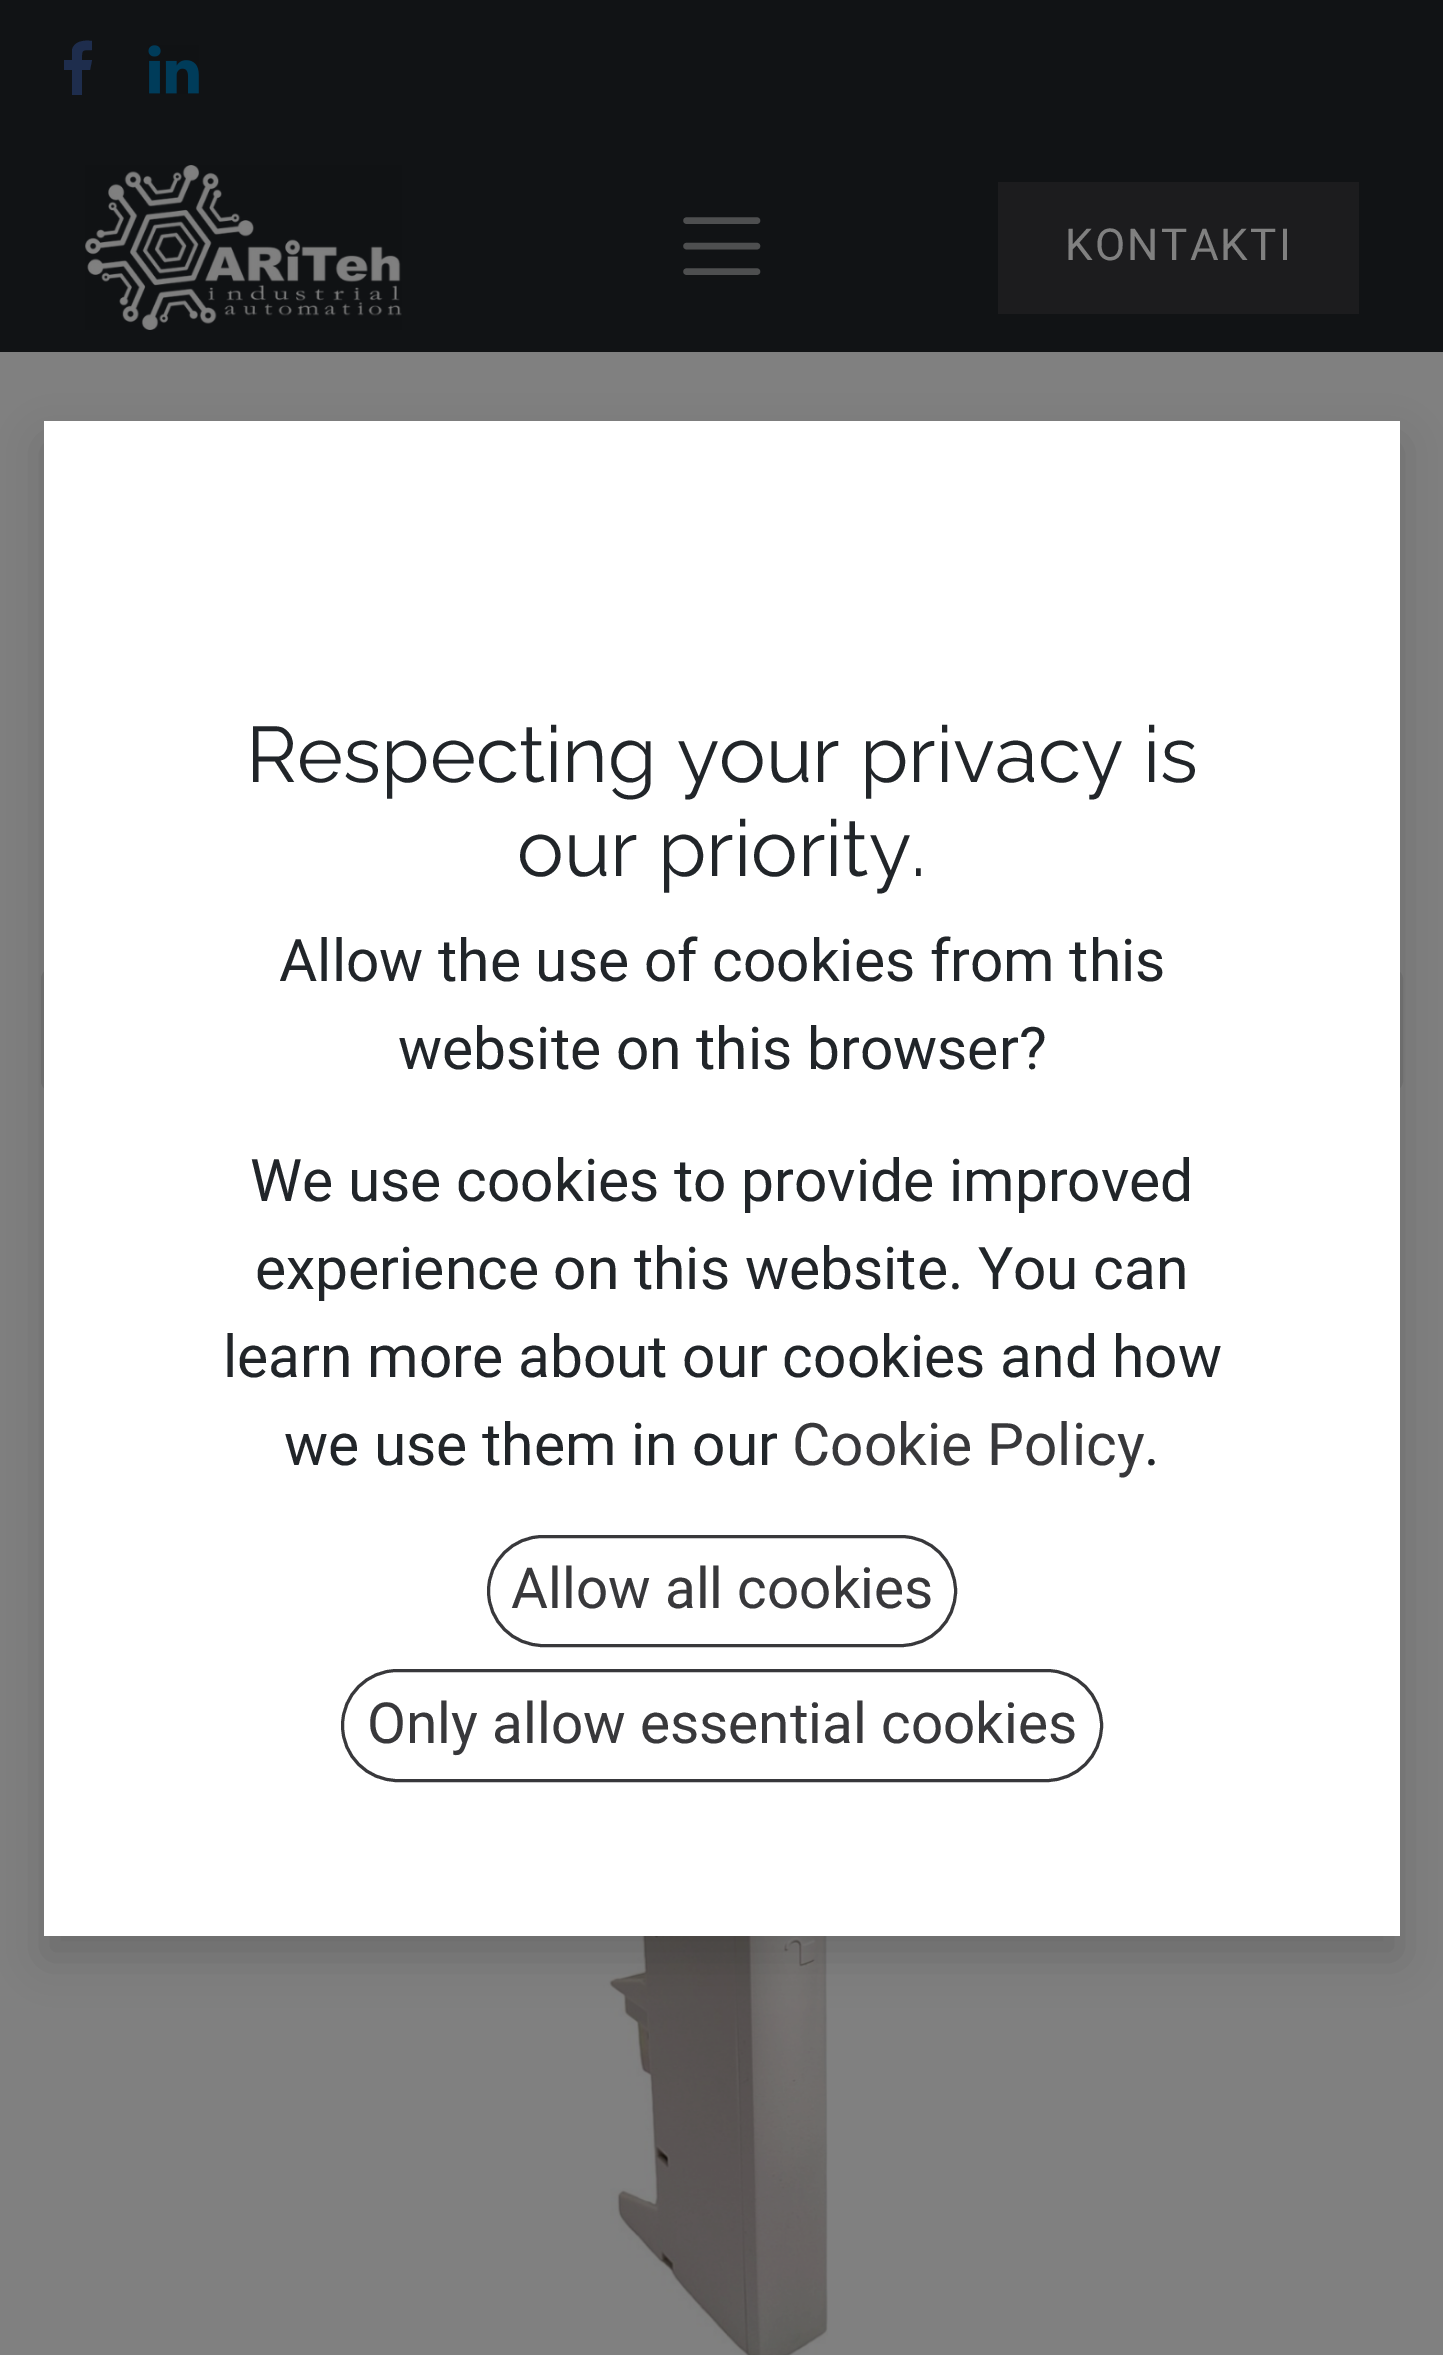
%!PS-Adobe-3.0
%%BoundingBox: 0 0 1443 2355
%%LanguageLevel: 3
%%Pages: 1
%%EndComments
%%BeginProlog
/setink { 3 { 255 div 3 1 roll } repeat setrgbcolor } def
/usefont { [ exch dup neg 0 0 3 -1 roll 0 0 ] selectfont } def
/drawtext { setink usefont moveto show } def
/fillbox { setink rectfill } def
/setalpha { dup .setfillconstantalpha .setstrokeconstantalpha } def
/rrect { 5 dict begin { /r /h /w /y /x } { exch def } forall
  x r add y moveto x w add y 2 copy h add r arct x w add y h add x 1 index r arct
  x y h add x y r arct x y 2 copy exch w add exch r arct closepath end } def
/softshadow { 12 dict begin { /a /b /q /h /w /y /x } { exch def } forall gsave /was 0 def
  9 -2 -9 { dup b mul 4 div /e exch def 1 sub .425 mul 2.718 exch exp 1 add a .99 .min exch div /now exch def
    1 1 now sub 1 was sub div sub setalpha /was now def
    w h .min e 2 mul add 0 gt { x e sub y e sub w e 2 mul add h e 2 mul add
      q e add b .6 mul add w h .min 2 div e add .min 0 .max rrect fill } if } for grestore end } def
/drawimage { 5 dict begin { /h /w /y /x /name } { exch def } forall
  gsave x y translate w h scale
  w h 8 [w 0 0 h 0 0] name (r) file false 3 colorimage grestore end } def
%%EndProlog
%%BeginSetup
<< /PageSize [1443 2355] /PageUsesTransparency true >> setpagedevice
%%EndSetup
%%Page: 1 1
0 .pushpdf14devicefilter
0 2355 translate 1 -1 scale
4 setmiterlimit
0 0 1443 2355 128 128 128 fillbox
0 0 1443 352 17 19 21 fillbox
30 45 77 setink
92 41 moveto 92 50 lineto 81 50 82 50 82 60 curveto 92 60 lineto 90 70 lineto 82 70 lineto 82 95 lineto 72 95 lineto 72 70 lineto 64 70 lineto 64 60 lineto 72 60 lineto 72 50 lineto 74 41 84 40 92 41 curveto closepath fill
(assets/img1.rgb) 148 45 51 49 drawimage
(assets/img2.rgb) 85 165 317 165 drawimage
78 79 80 setink
6.4 setlinewidth
1 setlinecap
686.5 220.5 moveto 757 220.5 lineto 686.5 246 moveto 757 246 lineto 686.5 271.5 moveto 757 271.5 lineto stroke
998 182 361 132 28 28 30 fillbox
/Roboto-Regular 44 usefont
128 128 128 setink
1065 260 moveto 2.25 0 (KONTAKTI) ashow
118 118 118 setink
52 968 moveto 1276 968 lineto 1276 1092 lineto 52 1092 lineto 46 1092 41 1087 41 1081 curveto 41 979 lineto 41 973 46 968 52 968 curveto closepath fill
3 setlinewidth
0 setlinecap
1274.5 969.5 moveto 1392 969.5 lineto 1397 969.5 1401.5 974 1401.5 979 curveto 1401.5 1081 lineto 1401.5 1086 1397 1090.5 1392 1090.5 curveto 1274.5 1090.5 lineto closepath stroke
(assets/img3.rgb) 570 1936 258 419 drawimage
0 0 0 setink
44 443 1356 1515 0 22 0.15 softshadow
44 421 1356 1515 255 255 255 fillbox
(Respecting your privacy is) 246 782 /Raleway-Regular 78.5 33 37 41 drawtext
(our priority.) 517 876 /Raleway-Regular 78.5 33 37 41 drawtext
(Allow the use of cookies from this) 279 981 /Roboto-Regular 58.7 33 37 41 drawtext
(website on this browser?) 398 1069 /Roboto-Regular 58.7 33 37 41 drawtext
(We use cookies to provide improved) 250 1201 /Roboto-Regular 58.7 33 37 41 drawtext
(experience on this website. You can) 255 1289 /Roboto-Regular 58.7 33 37 41 drawtext
(learn more about our cookies and how) 223 1377 /Roboto-Regular 58.7 33 37 41 drawtext
(we use them in our) 284 1465 /Roboto-Regular 58.7 33 37 41 drawtext
(Cookie Policy) 792 1465 /Roboto-Regular 58.7 56 56 59 drawtext
(.) 1144 1465 /Roboto-Regular 58.7 33 37 41 drawtext
56 56 59 setink
488.5 1536.5 467 109 54.5 rrect stroke
(Allow all cookies) 511 1608 /Roboto-Regular 56.75 56 56 59 drawtext
342.5 1670.5 759 110 55 rrect stroke
(Only allow essential cookies) 367 1743 /Roboto-Regular 56.75 56 56 59 drawtext
.poppdf14devicefilter showpage
%%EOF
